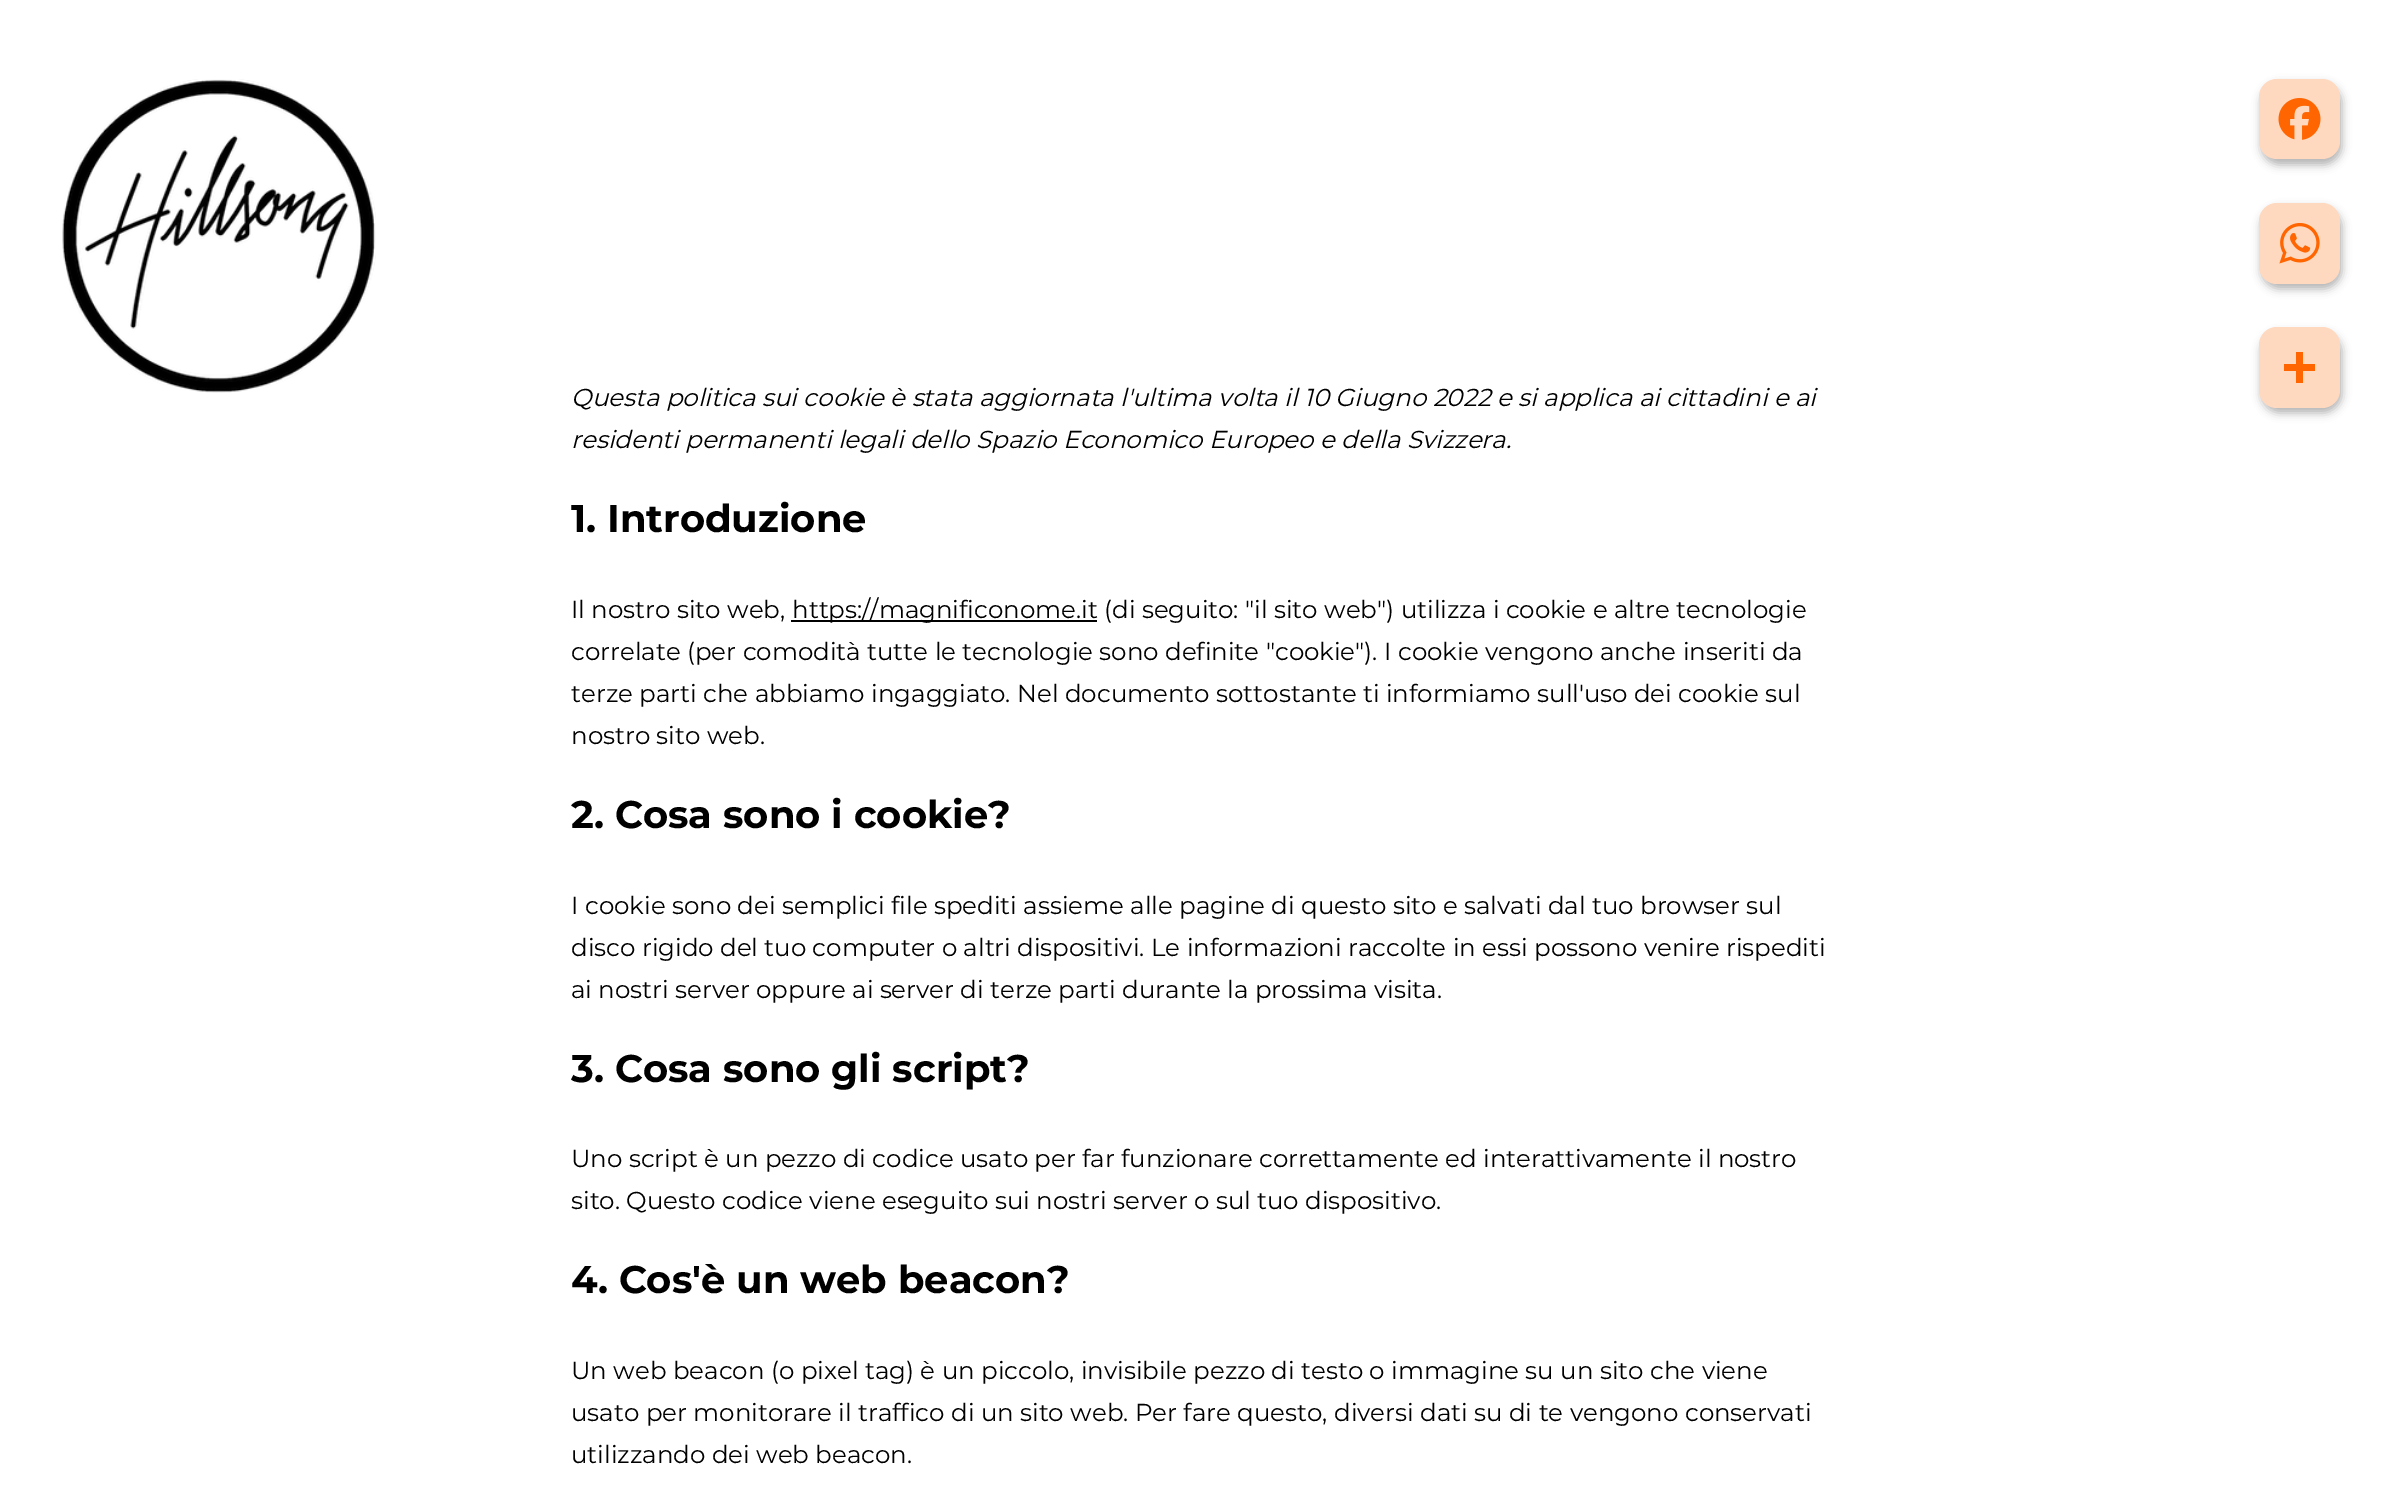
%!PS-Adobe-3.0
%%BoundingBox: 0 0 2408 1512
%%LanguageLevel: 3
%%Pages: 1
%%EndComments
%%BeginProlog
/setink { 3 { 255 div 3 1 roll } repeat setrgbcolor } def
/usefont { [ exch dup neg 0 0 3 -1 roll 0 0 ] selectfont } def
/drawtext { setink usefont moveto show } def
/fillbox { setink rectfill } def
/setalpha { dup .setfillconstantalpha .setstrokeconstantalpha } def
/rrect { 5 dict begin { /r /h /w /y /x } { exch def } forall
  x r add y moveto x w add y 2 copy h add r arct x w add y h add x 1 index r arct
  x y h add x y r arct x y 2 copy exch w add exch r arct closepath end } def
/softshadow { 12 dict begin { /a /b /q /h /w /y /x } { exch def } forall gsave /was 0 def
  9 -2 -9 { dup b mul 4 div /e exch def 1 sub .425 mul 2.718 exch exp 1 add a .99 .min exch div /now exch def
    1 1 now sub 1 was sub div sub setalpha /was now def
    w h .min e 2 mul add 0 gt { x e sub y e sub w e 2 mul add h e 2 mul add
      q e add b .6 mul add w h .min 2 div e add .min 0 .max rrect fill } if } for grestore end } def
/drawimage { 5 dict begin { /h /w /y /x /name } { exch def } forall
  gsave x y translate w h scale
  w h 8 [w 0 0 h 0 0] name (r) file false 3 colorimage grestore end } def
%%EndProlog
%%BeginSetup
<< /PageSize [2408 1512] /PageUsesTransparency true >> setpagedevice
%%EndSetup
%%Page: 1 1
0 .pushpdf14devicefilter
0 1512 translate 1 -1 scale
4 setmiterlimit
0 0 2408 1512 255 255 255 fillbox
(assets/img1.rgb) 62 79 314 314 drawimage
0 0 0 setink
2261 84 81 81 18 4.5 0.3 softshadow
255 217 191 setink
2259 79 81 80 18 rrect fill
(assets/img2.rgb) 2278 98 43 42 drawimage
0 0 0 setink
2261 208 81 81 18 4.5 0.3 softshadow
255 217 191 setink
2259 203 81 81 18 rrect fill
(assets/img3.rgb) 2279 223 41 41 drawimage
0 0 0 setink
2261 333 81 80 18 4.5 0.3 softshadow
255 217 191 setink
2259 327 81 81 18 rrect fill
2296 352 7 31 255 101 0 fillbox
2284 364 31 7 255 101 0 fillbox
(Questa politica sui cookie è stata aggiornata l'ultima volta il 10 Giugno 2022 e si applica ai cittadini e ai) 571 406 /Montserrat-Italic 24.5 0 0 0 drawtext
(residenti permanenti legali dello Spazio Economico Europeo e della Svizzera.) 571 448 /Montserrat-Italic 24.5 0 0 0 drawtext
(1. Introduzione) 571 532 /Montserrat-Bold 38.5 0 0 0 drawtext
(Il nostro sito web,) 571 618 /Montserrat-Regular 24.5 0 0 0 drawtext
791 620 306 2 0 0 0 fillbox
(https://magnificonome.it \(di seguito: "il sito web"\) utilizza i cookie e altre tecnologie) 792 618 /Montserrat-Regular 24.5 0 0 0 drawtext
(correlate \(per comodità tutte le tecnologie sono definite "cookie"\). I cookie vengono anche inseriti da) 571 660 /Montserrat-Regular 24.5 0 0 0 drawtext
(terze parti che abbiamo ingaggiato. Nel documento sottostante ti informiamo sull'uso dei cookie sul) 571 702 /Montserrat-Regular 24.5 0 0 0 drawtext
(nostro sito web.) 571 744 /Montserrat-Regular 24.5 0 0 0 drawtext
(2. Cosa sono i cookie?) 571 828 /Montserrat-Bold 38.5 0 0 0 drawtext
(I cookie sono dei semplici file spediti assieme alle pagine di questo sito e salvati dal tuo browser sul) 571 914 /Montserrat-Regular 24.5 0 0 0 drawtext
(disco rigido del tuo computer o altri dispositivi. Le informazioni raccolte in essi possono venire rispediti) 571 956 /Montserrat-Regular 24.5 0 0 0 drawtext
(ai nostri server oppure ai server di terze parti durante la prossima visita.) 571 998 /Montserrat-Regular 24.5 0 0 0 drawtext
(3. Cosa sono gli script?) 571 1082 /Montserrat-Bold 38.5 0 0 0 drawtext
(Uno script è un pezzo di codice usato per far funzionare correttamente ed interattivamente il nostro) 571 1167 /Montserrat-Regular 24.5 0 0 0 drawtext
(sito. Questo codice viene eseguito sui nostri server o sul tuo dispositivo.) 571 1209 /Montserrat-Regular 24.5 0 0 0 drawtext
(4. Cos'è un web beacon?) 571 1293 /Montserrat-Bold 38.5 0 0 0 drawtext
(Un web beacon \(o pixel tag\) è un piccolo, invisibile pezzo di testo o immagine su un sito che viene) 571 1379 /Montserrat-Regular 24.5 0 0 0 drawtext
(usato per monitorare il traffico di un sito web. Per fare questo, diversi dati su di te vengono conservati) 571 1421 /Montserrat-Regular 24.5 0 0 0 drawtext
(utilizzando dei web beacon.) 571 1463 /Montserrat-Regular 24.5 0 0 0 drawtext
.poppdf14devicefilter showpage
%%EOF
